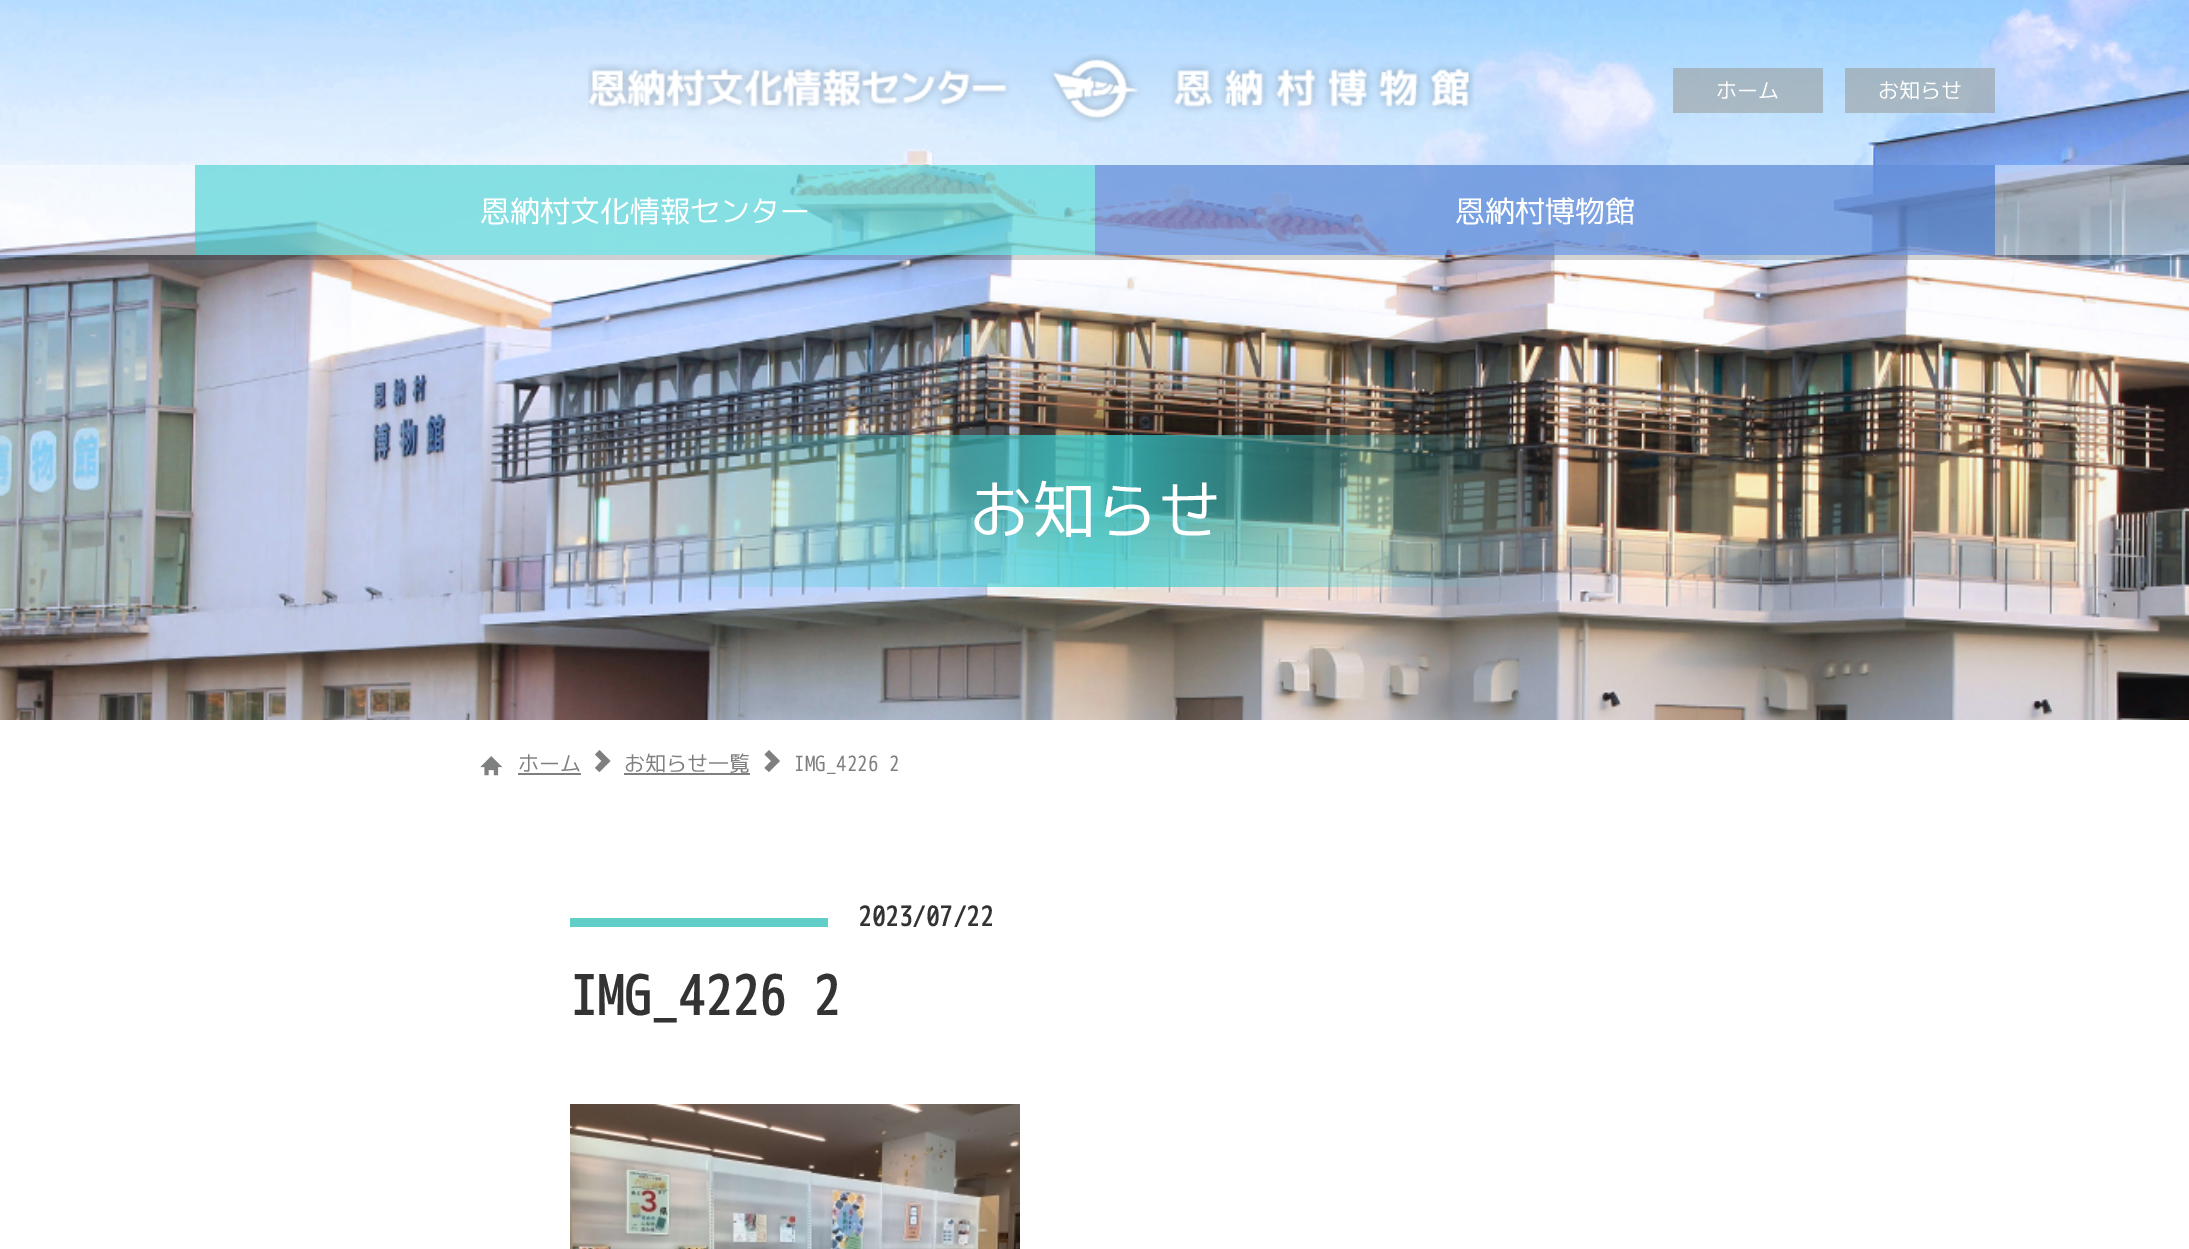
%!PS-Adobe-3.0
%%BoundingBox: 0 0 2189 1249
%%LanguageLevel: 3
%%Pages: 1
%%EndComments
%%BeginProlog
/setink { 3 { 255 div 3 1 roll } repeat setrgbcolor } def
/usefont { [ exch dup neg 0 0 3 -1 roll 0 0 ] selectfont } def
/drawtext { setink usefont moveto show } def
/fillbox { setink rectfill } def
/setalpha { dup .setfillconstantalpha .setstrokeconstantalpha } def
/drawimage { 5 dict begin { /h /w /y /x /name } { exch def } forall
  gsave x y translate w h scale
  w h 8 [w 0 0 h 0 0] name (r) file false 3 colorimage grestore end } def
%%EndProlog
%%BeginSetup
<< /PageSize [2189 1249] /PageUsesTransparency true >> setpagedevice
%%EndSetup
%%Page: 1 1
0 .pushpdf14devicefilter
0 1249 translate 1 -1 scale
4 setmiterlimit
0 0 2189 1249 255 255 255 fillbox
(assets/img1.rgb) 0 0 2189 720 drawimage
(assets/img2.rgb) 588 54 886 69 drawimage
0.6 setalpha
1673 68 150 45 154 158 157 fillbox
1 setalpha
(ホーム) 1716 98 /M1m-Regular 21 255 255 255 drawtext
0.6 setalpha
1845 68 150 45 154 158 157 fillbox
1 setalpha
(お知らせ) 1878 98 /M1m-Regular 21 255 255 255 drawtext
0.2 setalpha
0 255 2189 5 32 32 32 fillbox
0.4 setalpha
0 165 2189 90 255 255 255 fillbox
0.6 setalpha
195 165 900 90 59 206 209 fillbox
1 setalpha
(恩納村文化情報センター) 480 222 /M1m-Regular 30 255 255 255 drawtext
0.6 setalpha
1095 165 900 90 56 112 207 fillbox
1 setalpha
(恩納村博物館) 1455 222 /M1m-Regular 30 255 255 255 drawtext
(お知らせ) 969 533 /M1m-Regular 63 255 255 255 drawtext
(assets/img3.rgb) 480 756 23 20 drawimage
(ホーム) 518 771 /M1m-Regular 21 126 127 127 drawtext
518 773 63 2 126 127 127 fillbox
599.5 772 moveto 595 768 lineto 601.5 761 lineto 595 754.5 lineto 599.5 750 lineto 610.5 761 lineto closepath fill
(お知らせ一覧) 624 771 /M1m-Regular 21 126 127 127 drawtext
624 773 126 2 126 127 127 fillbox
769 772 moveto 764.5 768 lineto 771 761 lineto 764.5 754.5 lineto 769 750 lineto 780 761 lineto closepath fill
(IMG_4226 2) 794 771 /M1m-Regular 21 126 127 127 drawtext
570 918 258 9 97 206 200 fillbox
(2023/07/22) 858 926 /M1m-Bold 27 51 51 51 drawtext
(IMG_4226 2) 570 1015 /M1m-Bold 54 51 51 51 drawtext
(assets/img4.rgb) 570 1104 450 145 drawimage
.poppdf14devicefilter showpage
%%EOF
